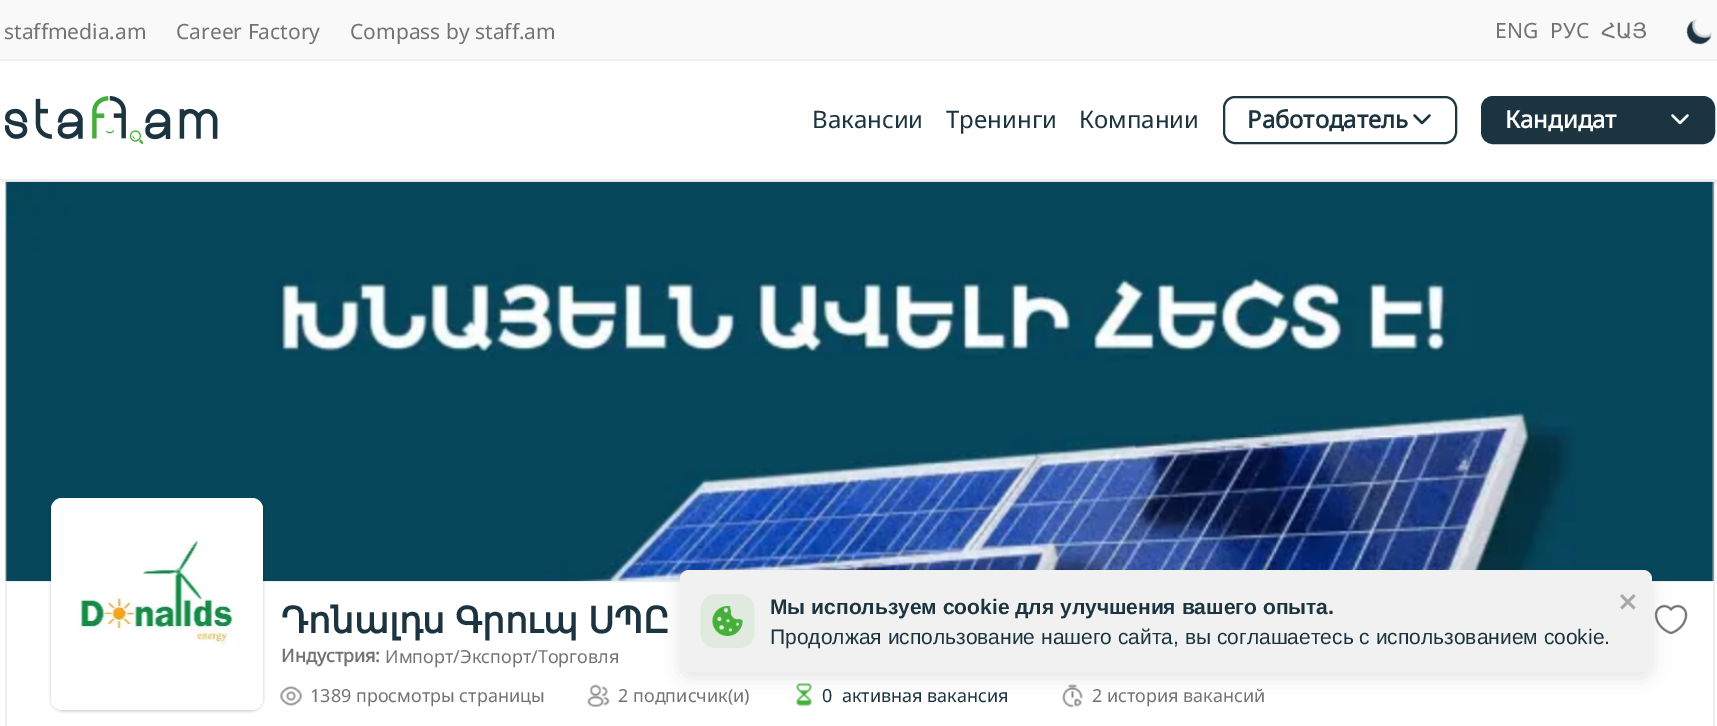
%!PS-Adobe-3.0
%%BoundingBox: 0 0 1717 726
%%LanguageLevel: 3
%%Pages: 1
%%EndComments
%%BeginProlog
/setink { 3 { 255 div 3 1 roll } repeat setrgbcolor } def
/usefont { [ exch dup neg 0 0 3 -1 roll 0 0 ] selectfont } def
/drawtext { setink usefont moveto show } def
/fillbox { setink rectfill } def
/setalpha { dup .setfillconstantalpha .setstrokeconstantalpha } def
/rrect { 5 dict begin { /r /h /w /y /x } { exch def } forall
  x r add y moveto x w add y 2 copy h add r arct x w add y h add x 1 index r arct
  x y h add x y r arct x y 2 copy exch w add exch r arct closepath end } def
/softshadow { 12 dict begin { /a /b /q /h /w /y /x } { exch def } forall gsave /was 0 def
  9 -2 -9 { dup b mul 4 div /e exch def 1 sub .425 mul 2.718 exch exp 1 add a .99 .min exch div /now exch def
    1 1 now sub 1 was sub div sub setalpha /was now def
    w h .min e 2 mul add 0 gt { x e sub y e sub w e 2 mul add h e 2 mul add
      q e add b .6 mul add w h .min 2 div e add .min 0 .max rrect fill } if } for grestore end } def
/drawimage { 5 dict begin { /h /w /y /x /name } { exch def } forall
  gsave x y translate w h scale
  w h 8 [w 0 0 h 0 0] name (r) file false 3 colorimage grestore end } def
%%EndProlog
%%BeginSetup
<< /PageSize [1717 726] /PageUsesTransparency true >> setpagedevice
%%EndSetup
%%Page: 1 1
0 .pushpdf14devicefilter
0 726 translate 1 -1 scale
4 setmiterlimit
0 0 1717 726 255 255 255 fillbox
238 238 238 setink
2 setlinewidth
6 181 1708 400 rectstroke
(assets/img3.rgb) 5 182 1709 399 drawimage
gsave
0 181 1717 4 rectclip
0 0 0 setink
0 63 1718 120 0 3 0.07 softshadow
grestore
0 0 1717 59 249 249 249 fillbox
0 59 1717 2 238 238 238 fillbox
(staffmedia.am) 4 39 /NotoSans-Regular 21 115 115 115 drawtext
(Career Factory) 176 39 /NotoSans-Regular 21 115 115 115 drawtext
(Compass by staff.am) 350 39 /NotoSans-Regular 21 115 115 115 drawtext
(ENG) 1495 38 /NotoSans-Regular 21 115 115 115 drawtext
(РУС) 1550 38 /NotoSans-Regular 21 115 115 115 drawtext
(ՀԱՅ) 1601 38 /DejaVuSans-Regular 21 115 115 115 drawtext
(assets/img1.rgb) 1686 19 26 26 drawimage
0 179 1717 2 238 238 238 fillbox
(assets/img2.rgb) 5 96 213 48 drawimage
(Вакансии) 812 128 /NotoSans-Regular 24 28 52 64 drawtext
(Тренинги) 946 128 /NotoSans-Regular 24 28 52 64 drawtext
(Компании) 1079 128 /NotoSans-Regular 24 28 52 64 drawtext
1224 97 232 46 11 rrect stroke
(Работодатель) 1247 128 /NotoSans-Bold 24 28 52 64 drawtext
2.2 setlinewidth
1 setlinecap
1 setlinejoin
1429.5 115.5 moveto 1422 123 lineto 1414.5 115.5 lineto stroke
1482 97 232 46 11 rrect gsave fill grestore
2 setlinewidth
0 setlinecap
0 setlinejoin
stroke
(Кандидат) 1505 128 /NotoSans-Bold 24 255 255 255 drawtext
2.2 setlinewidth
1 setlinecap
1 setlinejoin
1687.5 115.5 moveto 1680 123 lineto 1672.5 115.5 lineto stroke
1713 582 2 144 238 238 238 fillbox
5 582 2 144 238 238 238 fillbox
0 0 0 setink
51 500 212 211 12 1.5 0.22 softshadow
255 255 255 setink
51 498 212 212 11 rrect fill
(assets/img4.rgb) 79 539 155 110 drawimage
/DejaVuSans-Bold 36 usefont
28 52 64 setink
281 633 moveto -2 0 32 (Դոնալդս Գրուպ ՍՊԸ) widthshow
(assets/img5.rgb) 1654 604 34 31 drawimage
(Индустрия:) 281 662 /NotoSans-Bold 18 115 115 115 drawtext
(Импорт/Экспорт/Торговля) 385 663 /NotoSans-Regular 18 115 115 115 drawtext
(assets/img6.rgb) 280 686 22 20 drawimage
(1389 просмотры страницы) 310 702 /NotoSans-Regular 18 115 115 115 drawtext
(assets/img7.rgb) 587 684 23 23 drawimage
(2 подписчик\(и\)) 618 702 /NotoSans-Regular 18 115 115 115 drawtext
(assets/img8.rgb) 796 683 16 24 drawimage
(0  активная вакансия) 822 702 /NotoSans-Regular 18 28 52 64 drawtext
(assets/img9.rgb) 1062 684 21 24 drawimage
(2 история вакансий) 1092 702 /NotoSans-Regular 18 115 115 115 drawtext
0 0 0 setink
680 576 972 102 9 9 0.1 softshadow
241 241 241 setink
680 570 972 102 9 rrect fill
(assets/img10.rgb) 700 594 55 54 drawimage
(Мы используем cookiе для улучшения вашего опыта.) 770 614 /LiberationSans-Bold 21 28 52 64 drawtext
(Продолжая использование нашего сайта, вы соглашаетесь с использованием cookie.) 770 644 /LiberationSans-Regular 21 28 52 64 drawtext
(assets/img11.rgb) 1620 594 16 16 drawimage
.poppdf14devicefilter showpage
%%EOF
